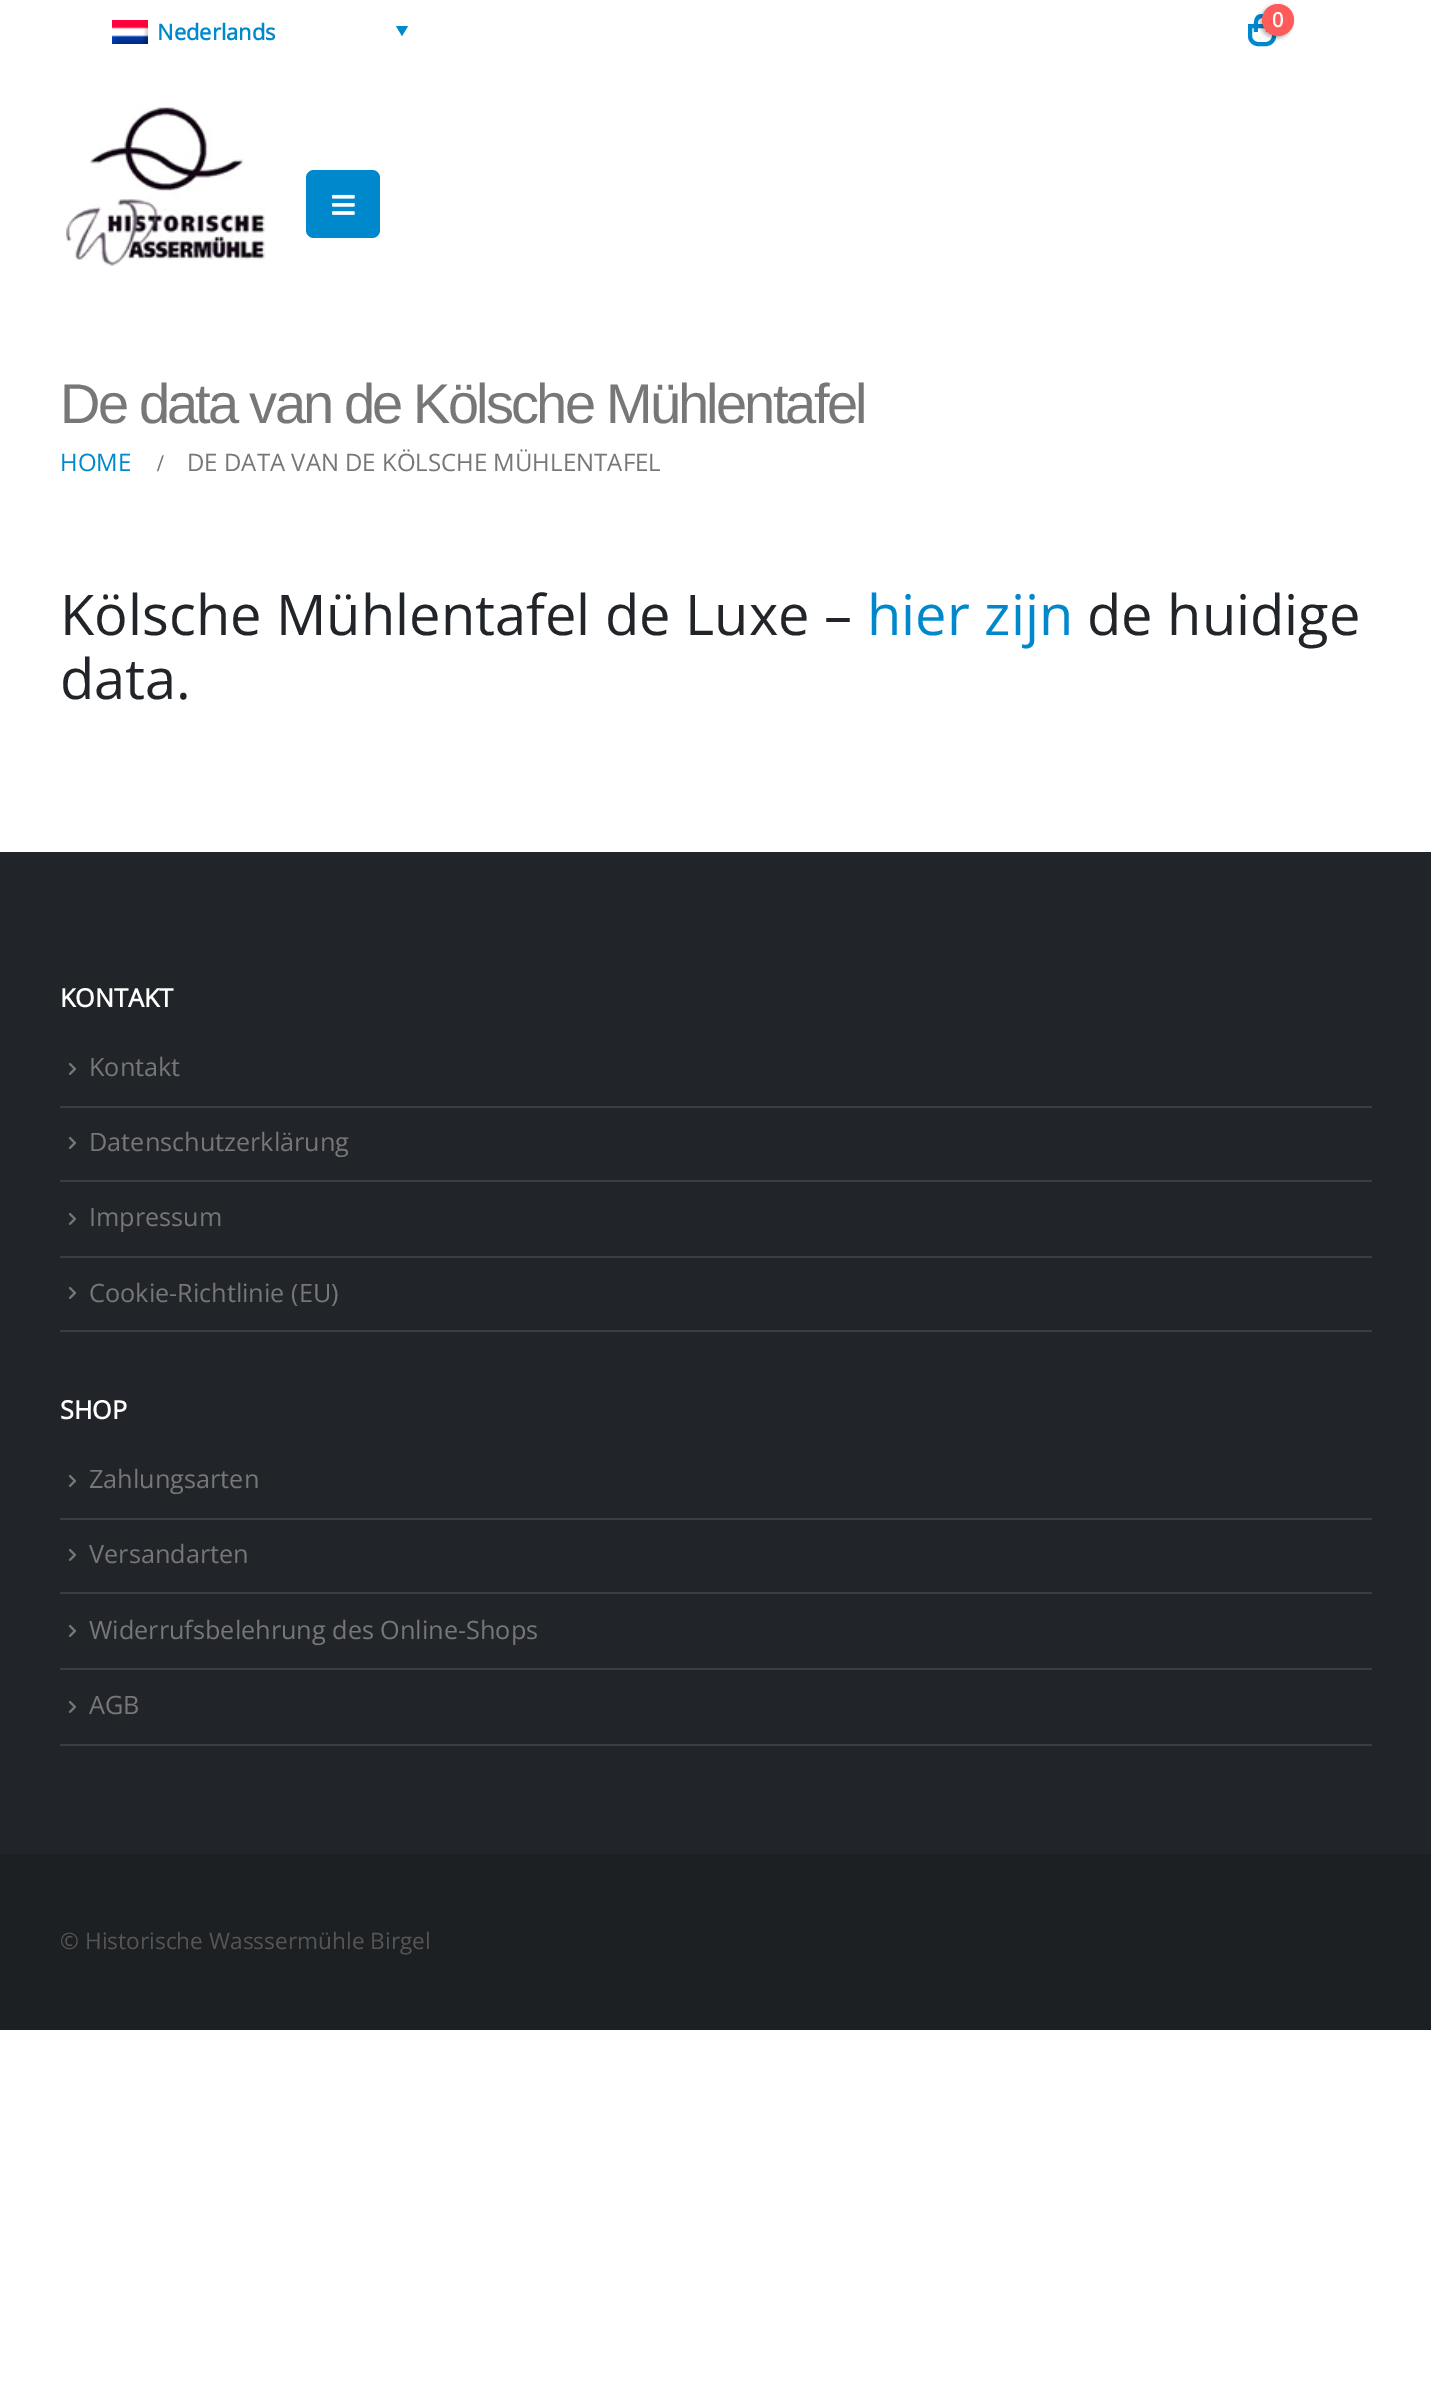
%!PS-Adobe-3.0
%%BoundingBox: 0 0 1431 2385
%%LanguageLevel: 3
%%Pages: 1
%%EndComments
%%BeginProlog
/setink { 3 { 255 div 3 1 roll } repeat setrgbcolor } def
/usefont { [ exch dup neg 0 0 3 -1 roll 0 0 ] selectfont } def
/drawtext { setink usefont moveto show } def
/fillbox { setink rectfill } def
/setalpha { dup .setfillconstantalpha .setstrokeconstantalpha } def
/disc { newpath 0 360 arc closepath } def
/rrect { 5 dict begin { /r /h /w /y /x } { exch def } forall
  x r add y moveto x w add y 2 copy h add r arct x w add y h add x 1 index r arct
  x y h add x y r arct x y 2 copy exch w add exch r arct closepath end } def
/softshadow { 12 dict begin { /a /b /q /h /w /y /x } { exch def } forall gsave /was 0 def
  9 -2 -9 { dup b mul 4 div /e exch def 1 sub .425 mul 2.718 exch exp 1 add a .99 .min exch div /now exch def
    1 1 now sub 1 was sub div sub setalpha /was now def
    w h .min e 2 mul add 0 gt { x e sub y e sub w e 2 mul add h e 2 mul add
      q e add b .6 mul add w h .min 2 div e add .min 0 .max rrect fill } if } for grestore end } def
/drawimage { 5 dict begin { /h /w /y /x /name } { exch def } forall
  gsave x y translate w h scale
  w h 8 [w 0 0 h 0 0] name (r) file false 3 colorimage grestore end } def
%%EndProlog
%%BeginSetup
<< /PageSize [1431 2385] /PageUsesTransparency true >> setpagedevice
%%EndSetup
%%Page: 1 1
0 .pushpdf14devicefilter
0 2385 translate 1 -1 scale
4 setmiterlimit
0 0 1431 2385 255 255 255 fillbox
0 136 204 setink
4 setlinewidth
1250 26 moveto 1274 26 lineto 1274 36 lineto 1274 40.5 1270.5 44 1266 44 curveto 1258 44 lineto 1253.5 44 1250 40.5 1250 36 curveto closepath stroke
1262 14 moveto 1272 14 1270 25.5 1270 32 curveto 1254 32 lineto 1254 25.5 1252 14 1262 14 curveto closepath 1262 18 moveto 1264 18 1266 20 1266 22 curveto 1266 32 lineto 1258 32 lineto 1258 22 lineto 1258 20 1260 18 1262 18 curveto closepath eofill
0 0 0 setink
1260 6 32 32 16 2 0.3 softshadow
255 91 91 setink
1278 20 16 disc fill
(0) 1272 27 /OpenSans-Bold 20 255 255 255 drawtext
(assets/img1.rgb) 112 20 36 24 drawimage
(Nederlands) 157 40 /OpenSans-Bold 22 0 136 204 drawtext
396 26 moveto 408 26 lineto 402 36 lineto closepath fill
(assets/img2.rgb) 66 107 200 159 drawimage
306 170 74 68 8 rrect fill
(assets/img3.rgb) 332 194 23 21 drawimage
/LiberationSans-Regular 56 usefont
119 119 119 setink
60 423 moveto -2.8 0 (De data van de Kölsche Mühlentafel) ashow
(HOME) 60 471 /OpenSans-Regular 24 0 136 204 drawtext
(/) 157 471 /LiberationSerif-Bold 24 119 119 119 drawtext
(DE DATA VAN DE KÖLSCHE MÜHLENTAFEL) 187 471 /OpenSans-Regular 24 119 119 119 drawtext
(Kölsche Mühlentafel de Luxe –) 60 635 /OpenSans-Regular 56 33 37 41 drawtext
(hier zijn) 867 635 /OpenSans-Regular 56 0 136 204 drawtext
(de huidige) 1087 635 /OpenSans-Regular 56 33 37 41 drawtext
(data.) 60 699 /OpenSans-Regular 56 33 37 41 drawtext
0 852 1431 1002 33 37 41 fillbox
(KONTAKT) 60 1007 /OpenSans-Bold 25.25 255 255 255 drawtext
60 1330 1312 2 59 62 64 fillbox
(assets/img4.rgb) 68 1062 9 13 drawimage
(Kontakt) 89 1076 /OpenSans-Regular 25.25 119 119 119 drawtext
60 1106 1312 2 59 62 64 fillbox
(assets/img4.rgb) 68 1136 9 13 drawimage
(Datenschutzerklärung) 89 1151 /OpenSans-Regular 25.25 119 119 119 drawtext
60 1180 1312 2 59 62 64 fillbox
(assets/img4.rgb) 68 1212 9 13 drawimage
(Impressum) 89 1226 /OpenSans-Regular 25.25 119 119 119 drawtext
60 1256 1312 2 59 62 64 fillbox
(assets/img4.rgb) 68 1286 9 13 drawimage
(Cookie-Richtlinie \(EU\)) 89 1302 /OpenSans-Regular 25.25 119 119 119 drawtext
(SHOP) 60 1419 /OpenSans-Bold 25.25 255 255 255 drawtext
60 1744 1312 2 59 62 64 fillbox
(assets/img4.rgb) 68 1474 9 13 drawimage
(Zahlungsarten) 89 1488 /OpenSans-Regular 25.25 119 119 119 drawtext
60 1518 1312 2 59 62 64 fillbox
(assets/img4.rgb) 68 1548 9 13 drawimage
(Versandarten) 89 1563 /OpenSans-Regular 25.25 119 119 119 drawtext
60 1592 1312 2 59 62 64 fillbox
(assets/img4.rgb) 68 1624 9 13 drawimage
(Widerrufsbelehrung des Online-Shops) 89 1639 /OpenSans-Regular 25.25 119 119 119 drawtext
60 1668 1312 2 59 62 64 fillbox
(assets/img4.rgb) 68 1700 9 13 drawimage
(AGB) 89 1714 /OpenSans-Regular 25.25 119 119 119 drawtext
0 1854 1431 176 28 32 35 fillbox
(© Historische Wasssermühle Birgel) 60 1949 /OpenSans-Regular 22.7 85 85 85 drawtext
.poppdf14devicefilter showpage
%%EOF
